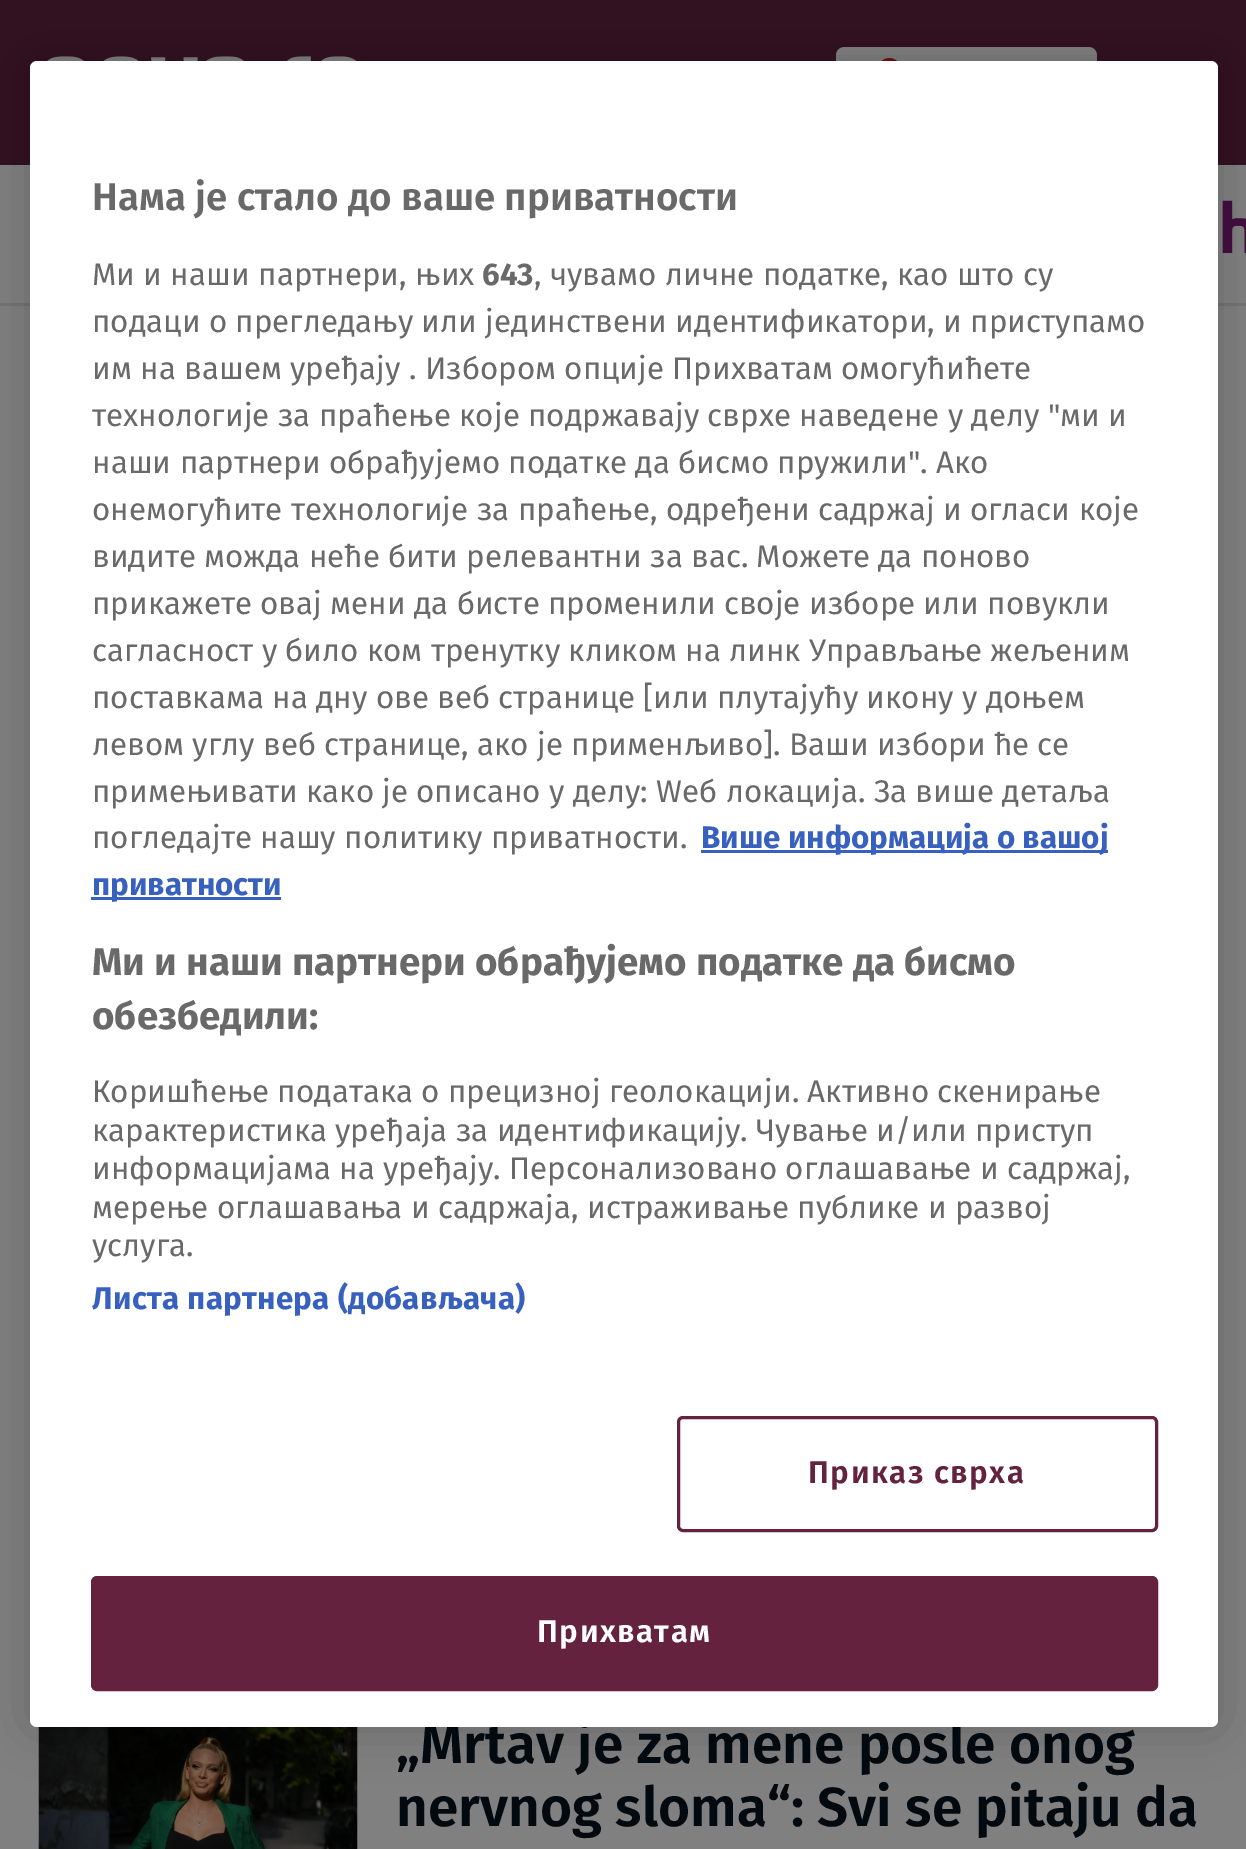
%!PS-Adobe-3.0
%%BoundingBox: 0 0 1246 1849
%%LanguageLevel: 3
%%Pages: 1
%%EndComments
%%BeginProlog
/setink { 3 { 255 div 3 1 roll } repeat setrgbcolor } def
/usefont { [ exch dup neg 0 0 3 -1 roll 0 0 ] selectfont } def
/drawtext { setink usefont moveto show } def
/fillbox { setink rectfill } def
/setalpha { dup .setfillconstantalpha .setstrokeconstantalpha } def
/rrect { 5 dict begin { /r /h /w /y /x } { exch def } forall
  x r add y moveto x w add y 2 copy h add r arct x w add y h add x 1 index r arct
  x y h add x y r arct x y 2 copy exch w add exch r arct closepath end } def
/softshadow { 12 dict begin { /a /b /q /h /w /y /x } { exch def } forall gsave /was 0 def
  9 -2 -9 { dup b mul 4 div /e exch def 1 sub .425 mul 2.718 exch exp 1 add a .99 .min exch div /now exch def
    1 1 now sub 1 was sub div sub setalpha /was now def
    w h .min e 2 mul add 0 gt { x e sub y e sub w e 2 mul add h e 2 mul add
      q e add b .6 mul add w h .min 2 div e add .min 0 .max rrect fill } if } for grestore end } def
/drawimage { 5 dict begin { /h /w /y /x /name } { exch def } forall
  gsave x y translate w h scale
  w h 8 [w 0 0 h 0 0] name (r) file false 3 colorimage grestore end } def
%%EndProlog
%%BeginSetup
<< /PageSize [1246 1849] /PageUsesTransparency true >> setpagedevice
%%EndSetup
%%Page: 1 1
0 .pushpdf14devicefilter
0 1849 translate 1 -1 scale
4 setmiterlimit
0 0 1246 1849 128 128 128 fillbox
0 0 1246 165 50 17 32 fillbox
(assets/img1.rgb) 47 56 310 5 drawimage
(assets/img2.rgb) 836 47 261 14 drawimage
0 303 1246 3 116 116 116 fillbox
(assets/img3.rgb) 1222 200 24 53 drawimage
(assets/img4.rgb) 38 1727 320 122 drawimage
0 0 0 setink
30 61 1188 1666 7 25 0.2 softshadow
(„Mrtav je za mene posle onog) 396 1763 /FiraSans-SemiBold 55 3 10 15 drawtext
255 255 255 setink
30 61 1188 1666 7 rrect fill
(Нама је стало до ваше приватности) 92 210 /FiraSans-SemiBold 38.5 105 105 105 drawtext
(Ми и наши партнери, њих) 92 285 /FiraSans-Regular 31.3 105 105 105 drawtext
(643) 482 285 /FiraSans-Bold 31.3 105 105 105 drawtext
(, чувамо личне податке, као што су) 534 285 /FiraSans-Regular 31.3 105 105 105 drawtext
(подаци о прегледању или јединствени идентификатори, и приступамо) 92 332 /FiraSans-Regular 31.3 105 105 105 drawtext
(им на вашем уређају . Избором опције Прихватам омогућићете) 92 379 /FiraSans-Regular 31.3 105 105 105 drawtext
(технологије за праћење које подржавају сврхе наведене у делу "ми и) 92 426 /FiraSans-Regular 31.3 105 105 105 drawtext
(наши партнери обрађујемо податке да бисмо пружили".) 92 473 /FiraSans-Regular 31.3 105 105 105 drawtext
(Ако) 936 473 /FiraSans-Regular 31.3 105 105 105 drawtext
(онемогућите технологије за праћење, одређени садржај и огласи које) 92 520 /FiraSans-Regular 31.3 105 105 105 drawtext
(видите можда неће бити релевантни за вас. Можете да поново) 92 567 /FiraSans-Regular 31.3 105 105 105 drawtext
(прикажете овај мени да бисте променили своје изборе или повукли) 92 614 /FiraSans-Regular 31.3 105 105 105 drawtext
(сагласност у било ком тренутку кликом на линк Управљање жељеним) 92 661 /FiraSans-Regular 31.3 105 105 105 drawtext
(поставкама на дну ове веб странице) 92 708 /FiraSans-Regular 31.3 105 105 105 drawtext
([или плутајућу икону у доњем) 643 708 /FiraSans-Regular 31.3 105 105 105 drawtext
(левом углу веб странице, ако је применљиво]. Ваши избори ће се) 92 755 /FiraSans-Regular 31.3 105 105 105 drawtext
(примењивати како је описано у делу: Wеб локација. За више детаља) 92 802 /FiraSans-Regular 31.3 105 105 105 drawtext
(погледајте нашу политику приватности.) 92 848 /FiraSans-Regular 31.3 105 105 105 drawtext
701 850 407 3 56 96 190 fillbox
(Више информација о вашој) 701 848 /FiraSans-Bold 31.3 56 96 190 drawtext
91 897 190 3 56 96 190 fillbox
(приватности) 92 895 /FiraSans-Bold 31.3 56 96 190 drawtext
(Ми и наши партнери обрађујемо податке да бисмо) 92 975 /FiraSans-Bold 38.5 105 105 105 drawtext
(обезбедили:) 92 1029 /FiraSans-Bold 38.5 105 105 105 drawtext
(Коришћење података о прецизној геолокацији. Активно скенирање) 92 1102 /FiraSans-Regular 31.3 105 105 105 drawtext
(карактеристика уређаја за идентификацију. Чување и/или приступ) 92 1141 /FiraSans-Regular 31.3 105 105 105 drawtext
(информацијама на уређају. Персонализовано оглашавање и садржај,) 92 1179 /FiraSans-Regular 31.3 105 105 105 drawtext
(мерење оглашавања и садржаја, истраживање публике и развој) 92 1218 /FiraSans-Regular 31.3 105 105 105 drawtext
(услуга.) 92 1256 /FiraSans-Regular 31.3 105 105 105 drawtext
/FiraSans-Bold 31.3 usefont
56 96 190 setink
92 1309 moveto 0.3 0 (Листа партнера \(добављача\)) ashow
100 34 63 setink
3 setlinewidth
678.5 1417.5 478 113 4.5 rrect stroke
/FiraSans-SemiBold 31.3 usefont
808 1483 moveto 1.5 0 (Приказ сврха) ashow
92.5 1577.5 1064 112 4.5 rrect gsave fill grestore
stroke
255 255 255 setink
537 1642 moveto 1.5 0 (Прихватам) ashow
(nervnog sloma“: Svi se pitaju da) 396 1826 /FiraSans-SemiBold 55 3 10 15 drawtext
.poppdf14devicefilter showpage
%%EOF
